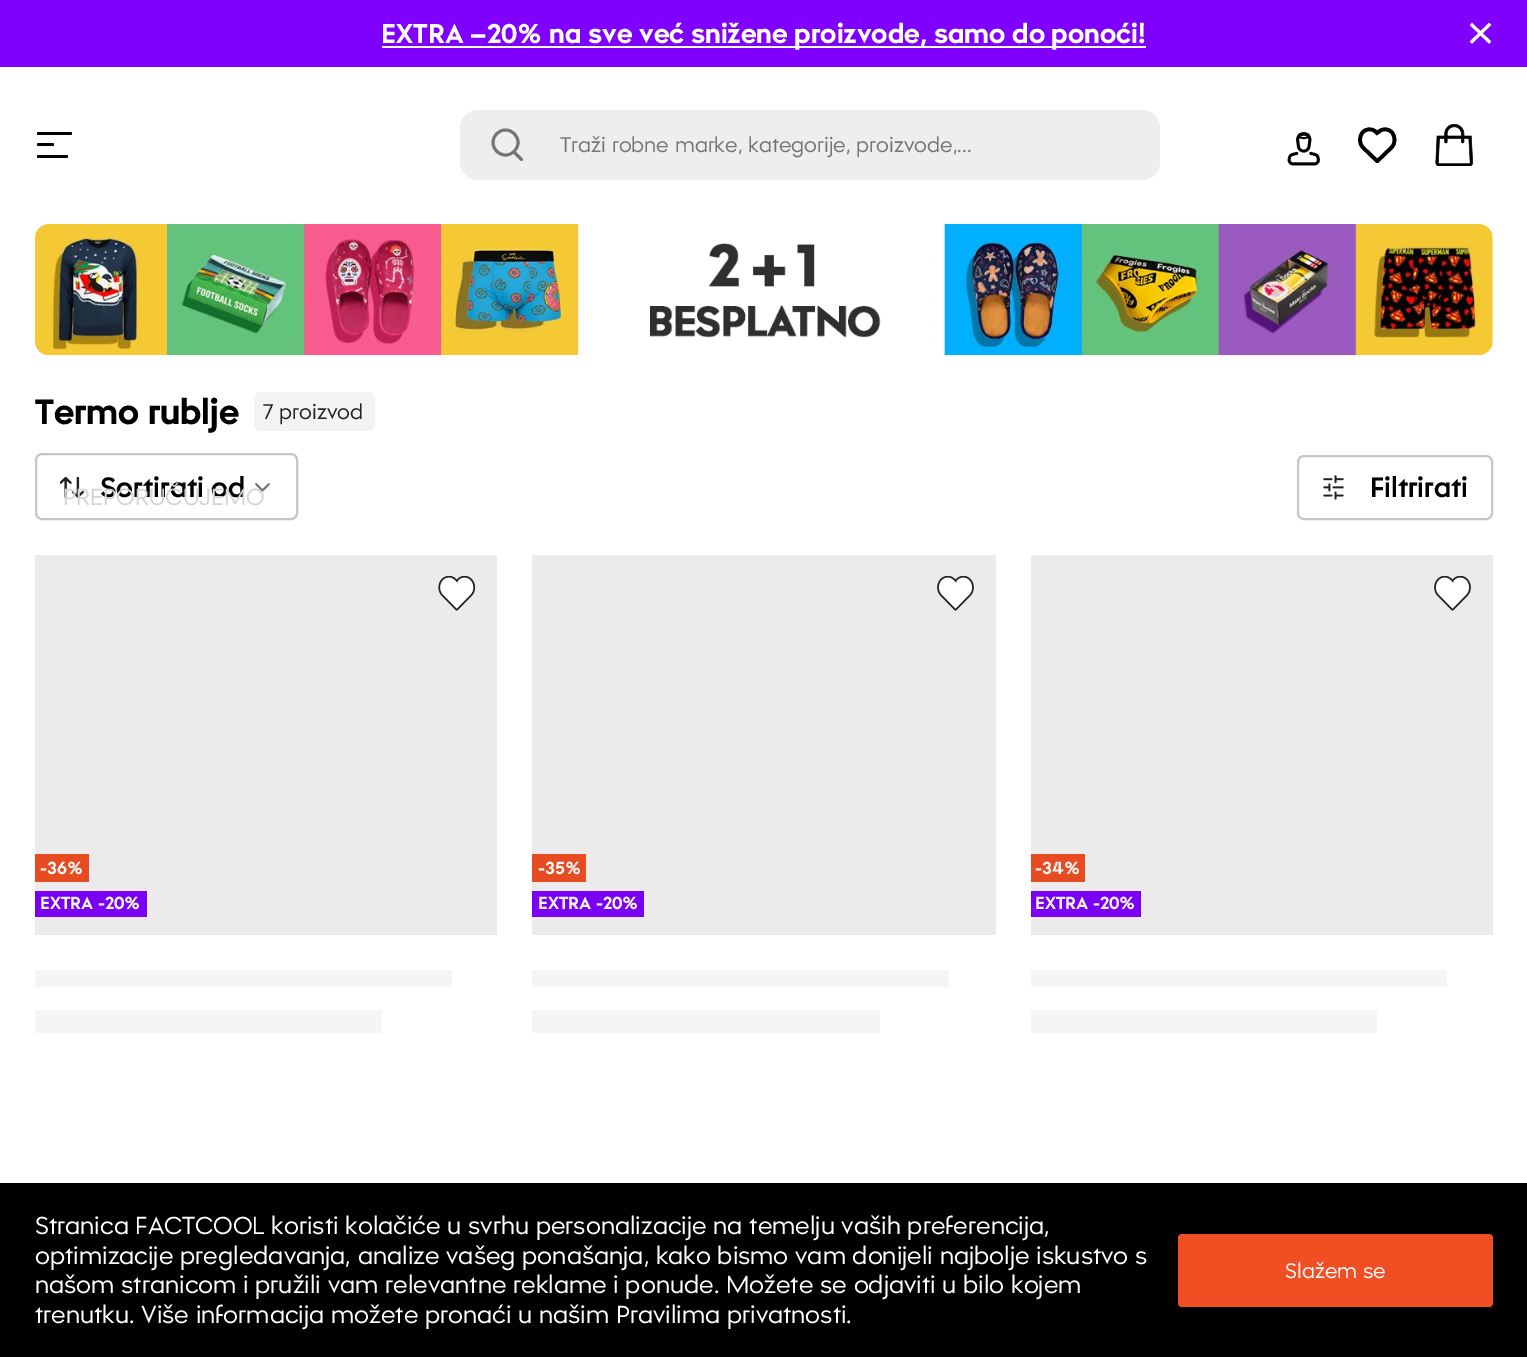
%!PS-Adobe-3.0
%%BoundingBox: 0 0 1527 1357
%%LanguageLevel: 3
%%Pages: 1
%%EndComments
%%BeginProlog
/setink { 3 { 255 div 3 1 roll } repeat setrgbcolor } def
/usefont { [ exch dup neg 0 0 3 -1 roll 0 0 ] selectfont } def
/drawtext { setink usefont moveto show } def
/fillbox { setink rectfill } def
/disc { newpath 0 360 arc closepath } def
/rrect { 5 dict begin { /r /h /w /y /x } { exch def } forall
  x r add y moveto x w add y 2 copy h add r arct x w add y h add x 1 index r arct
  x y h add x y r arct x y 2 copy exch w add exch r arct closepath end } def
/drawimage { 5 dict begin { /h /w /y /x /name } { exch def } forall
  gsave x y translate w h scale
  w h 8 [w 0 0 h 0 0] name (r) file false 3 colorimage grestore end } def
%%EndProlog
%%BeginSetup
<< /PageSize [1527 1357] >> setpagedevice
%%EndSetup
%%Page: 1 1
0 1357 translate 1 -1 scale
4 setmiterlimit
0 0 1527 1357 255 255 255 fillbox
0 0 1527 67 127 0 255 fillbox
382 46 764 2 255 255 255 fillbox
(EXTRA –20% na sve već snižene proizvode, samo do ponoći!) 381 43 /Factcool-Bold 27.1 255 255 255 drawtext
3 setlinewidth
2 setlinecap
1489 25 moveto 1472 41.5 lineto 1472 25 moveto 1489 41.5 lineto stroke
0 0 0 setink
37 132 35 3 1.5 rrect fill
37 143 17 3 1.5 rrect fill
37 155 31 3 1.5 rrect fill
238 238 238 setink
460 110 700 70 18 rrect fill
117 117 117 setink
2.9 setlinewidth
0 setlinecap
505.5 142.5 12.5 disc stroke
1 setlinecap
521.5 159.5 moveto 514 152 lineto stroke
(Traži robne marke, kategorije, proizvode,…) 560 152 /Factcool-Regular 21 117 117 117 drawtext
(assets/img1.rgb) 1287 132 33 34 drawimage
0 0 0 setink
3.7 setlinewidth
1377 133 moveto 1376 132 lineto 1372 128 1366 128.5 1362.5 132.5 curveto 1359 137 1359 143.5 1363 147.5 curveto 1377 161 lineto 1377.5 161 lineto 1391.5 147.5 lineto 1395.5 143.5 1395.5 137 1392 132.5 curveto 1388.5 128.5 1382.5 128 1378.5 132 curveto closepath stroke
(assets/img2.rgb) 1435 124 38 42 drawimage
(assets/img3.rgb) 35 224 1458 132 drawimage
(Termo rublje) 35 424 /Factcool-Bold 35 0 0 0 drawtext
243 243 243 setink
254 392 121 39 7 rrect fill
(7 proizvod) 263 419 /Factcool-Regular 21 34 34 34 drawtext
198 198 198 setink
2 setlinewidth
0 setlinecap
36 454 261 65 6 rrect stroke
(assets/img4.rgb) 60 477 24 21 drawimage
(Sortirati od) 100 497 /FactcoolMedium-Medium 28 0 0 0 drawtext
118 118 118 setink
1.8 setlinewidth
1 setlinecap
1 setlinejoin
269 484 moveto 262.5 490.5 lineto 256 484 lineto stroke
(PREPORUČUJEMO) 63 505 /Factcool-Regular 23.25 212 212 212 drawtext
198 198 198 setink
2 setlinewidth
0 setlinecap
0 setlinejoin
1298 456 194 63 6 rrect stroke
(assets/img5.rgb) 1323 475 21 25 drawimage
(Filtrirati) 1370 497 /FactcoolMedium-Medium 28 0 0 0 drawtext
35 555 462 380 235 235 235 fillbox
(assets/img6.rgb) 438 576 38 35 drawimage
35 854 54 28 230 75 34 fillbox
(-36%) 40 874 /Factcool-Bold 17.5 245 245 245 drawtext
35 891 112 26 122 0 245 fillbox
(EXTRA -20%) 40 909 /Factcool-Bold 17.5 245 245 245 drawtext
35 970 417 17 245 245 245 fillbox
35 1010 347 23 245 245 245 fillbox
532 555 464 380 235 235 235 fillbox
(assets/img7.rgb) 937 576 37 35 drawimage
532 854 54 28 230 75 34 fillbox
(-35%) 538 874 /Factcool-Bold 17.5 245 245 245 drawtext
532 891 112 26 122 0 245 fillbox
(EXTRA -20%) 538 909 /Factcool-Bold 17.5 245 245 245 drawtext
532 970 417 17 245 245 245 fillbox
532 1010 348 23 245 245 245 fillbox
1031 555 462 380 235 235 235 fillbox
(assets/img7.rgb) 1434 576 37 35 drawimage
1031 854 54 28 230 75 34 fillbox
(-34%) 1035 874 /Factcool-Bold 17.5 245 245 245 drawtext
1031 891 110 26 122 0 245 fillbox
(EXTRA -20%) 1035 909 /Factcool-Bold 17.5 245 245 245 drawtext
1031 970 416 17 245 245 245 fillbox
1031 1010 346 23 245 245 245 fillbox
0 1183 1527 174 0 0 0 fillbox
(Stranica FACTCOOL koristi kolačiće u svrhu personalizacije na temelju vaših preferencija,) 35 1234 /Factcool-Regular 24.5 255 255 255 drawtext
(optimizacije pregledavanja, analize vašeg ponašanja, kako bismo vam donijeli najbolje iskustvo s) 35 1264 /Factcool-Regular 24.5 255 255 255 drawtext
(našom stranicom i pružili vam relevantne reklame i ponude. Možete se odjaviti u bilo kojem) 35 1293 /Factcool-Regular 24.5 255 255 255 drawtext
(trenutku. Više informacija možete pronaći u našim Pravilima privatnosti.) 35 1323 /Factcool-Regular 24.5 255 255 255 drawtext
240 78 35 setink
1178 1234 315 73 4 rrect fill
(Slažem se) 1285 1278 /Factcool-Regular 21 255 255 255 drawtext
showpage
%%EOF
